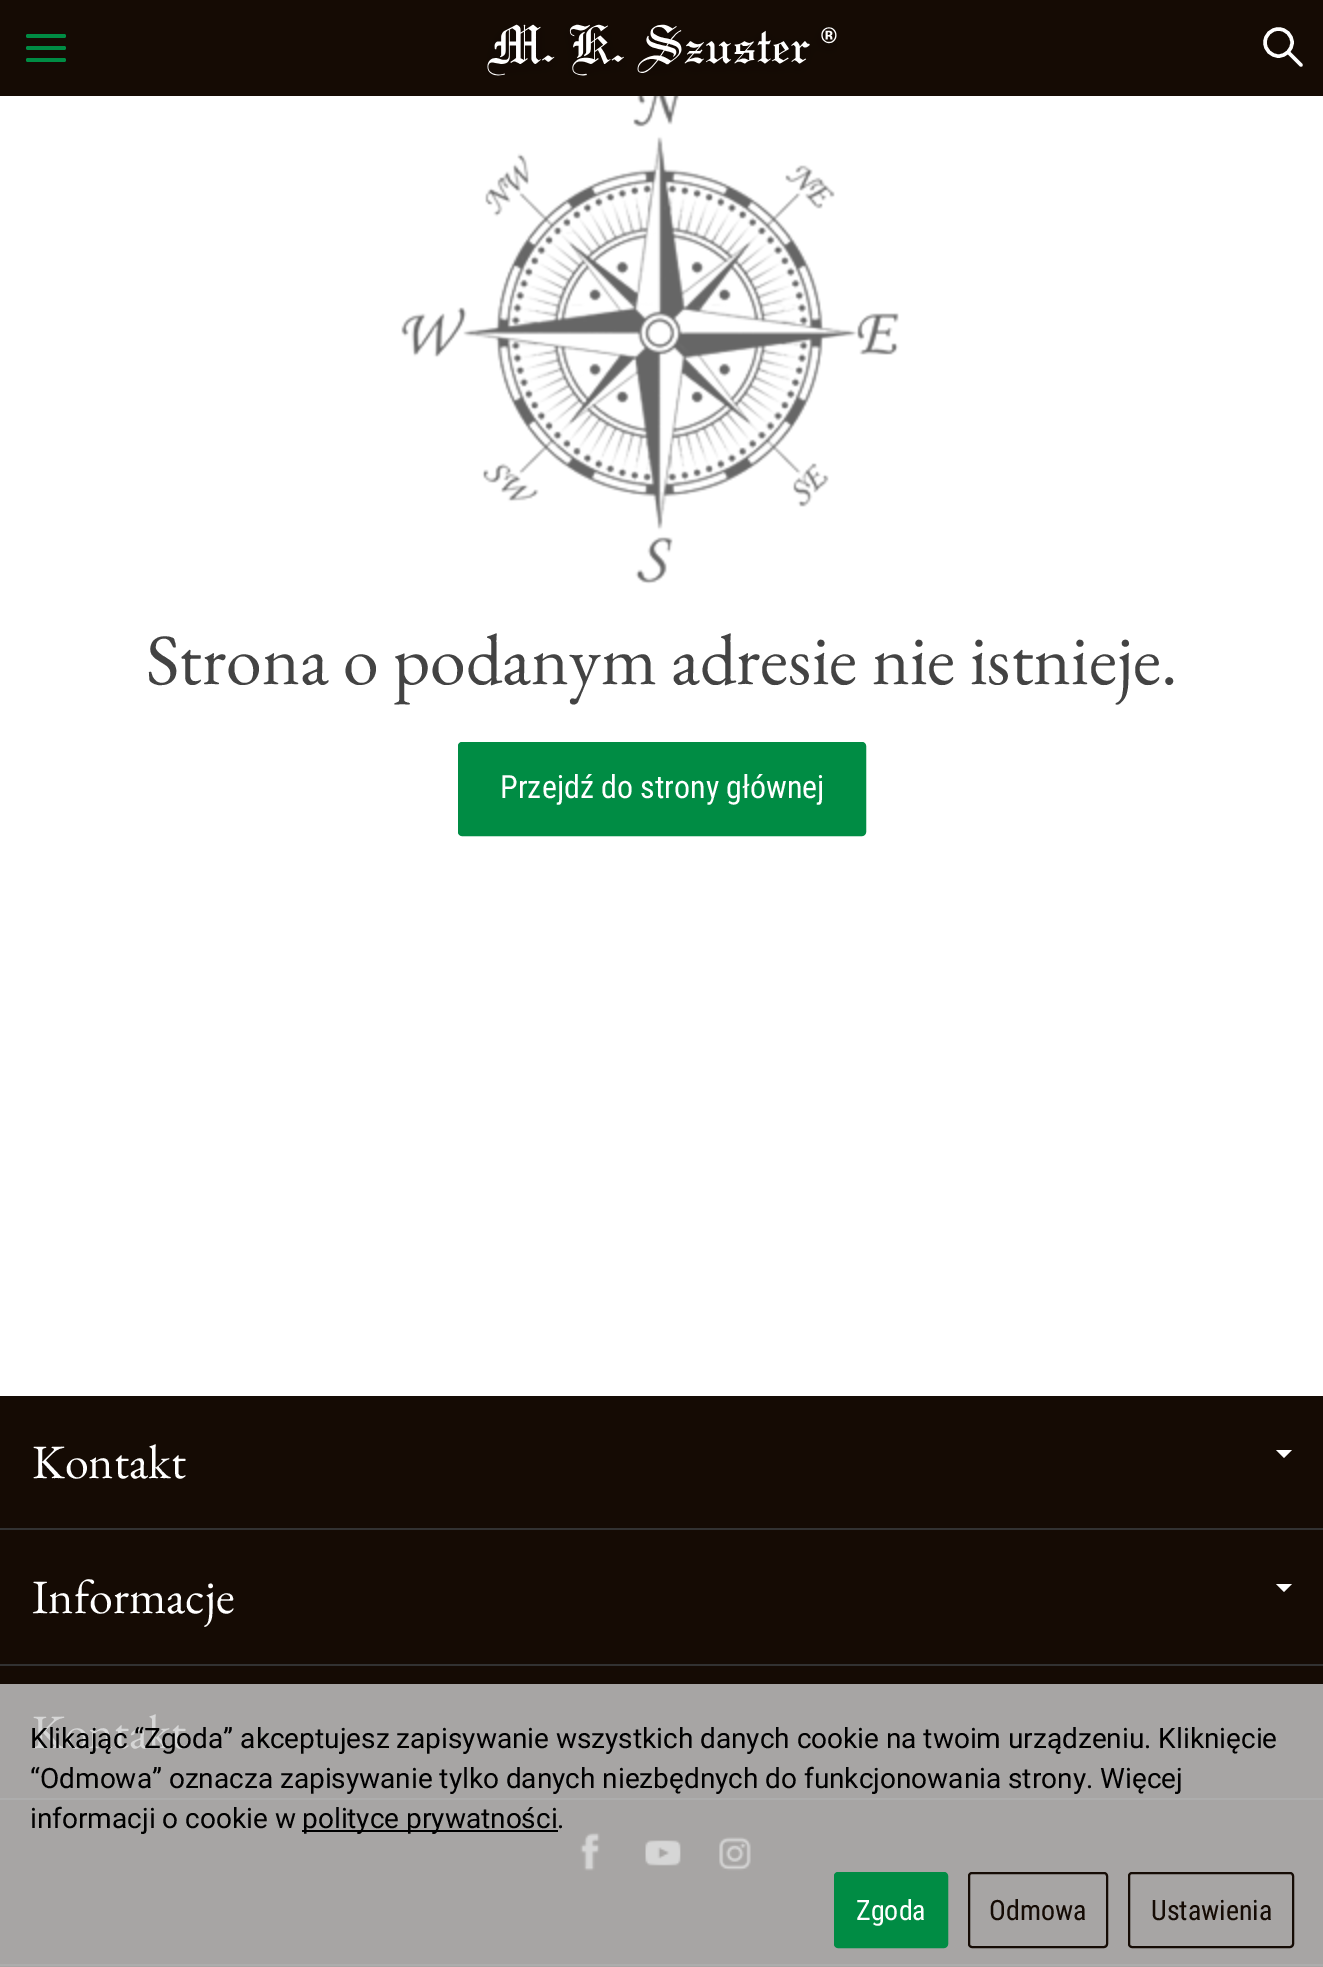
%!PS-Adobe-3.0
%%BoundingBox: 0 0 1323 1967
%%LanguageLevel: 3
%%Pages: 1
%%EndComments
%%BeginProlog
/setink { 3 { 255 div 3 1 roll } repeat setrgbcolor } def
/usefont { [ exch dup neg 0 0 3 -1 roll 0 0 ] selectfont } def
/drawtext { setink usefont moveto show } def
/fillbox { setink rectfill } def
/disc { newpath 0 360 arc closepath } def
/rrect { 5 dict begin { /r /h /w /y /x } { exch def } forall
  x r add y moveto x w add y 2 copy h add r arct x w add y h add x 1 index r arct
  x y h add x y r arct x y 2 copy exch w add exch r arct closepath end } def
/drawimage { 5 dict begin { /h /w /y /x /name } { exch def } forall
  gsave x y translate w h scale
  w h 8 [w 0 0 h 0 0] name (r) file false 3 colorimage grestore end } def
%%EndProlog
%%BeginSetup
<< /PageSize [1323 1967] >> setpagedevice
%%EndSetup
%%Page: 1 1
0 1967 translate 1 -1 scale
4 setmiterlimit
0 0 1323 1967 255 255 255 fillbox
0 0 1323 96 21 11 4 fillbox
0 140 68 setink
26 34 40 4 2 rrect fill
26 46 40 4 2 rrect fill
26 58 40 4 2 rrect fill
(assets/img1.rgb) 487 24 350 52 drawimage
255 255 255 setink
3.4 setlinewidth
1 setlinecap
1 setlinejoin
1288.5 52.5 moveto 1301 65 lineto stroke
0 setlinecap
0 setlinejoin
1278.5 42.5 13.5 disc stroke
(assets/img2.rgb) 401 96 498 488 drawimage
(Strona o podanym adresie nie istnieje.) 146 684 /EBGaramond-Regular 72 67 67 67 drawtext
0 140 68 setink
459 743 406 92 3 rrect gsave fill grestore
2 setlinewidth
stroke
(Przejdź do strony głównej) 500 798 /RobotoCondensed-Regular 32 255 255 255 drawtext
0 1396 1323 288 21 11 4 fillbox
0 1684 1323 283 167 165 164 fillbox
0 1528 1323 2 50 50 50 fillbox
(Kontakt) 32 1478 /EBGaramond-Regular 48 255 255 255 drawtext
1276 1450 moveto 1292 1450 lineto 1284 1458 lineto closepath fill
0 1664 1323 2 50 50 50 fillbox
(Informacje) 32 1613 /EBGaramond-Regular 48 255 255 255 drawtext
1276 1584 moveto 1292 1584 lineto 1284 1592 lineto closepath fill
0 1798 1323 2 173 173 173 fillbox
(Kontakt) 32 1748 /EBGaramond-Regular 48 214 214 214 drawtext
(assets/img3.rgb) 580 1832 20 39 drawimage
(assets/img4.rgb) 645 1840 36 26 drawimage
(assets/img5.rgb) 719 1837 32 34 drawimage
0 1964 1323 2 173 173 173 fillbox
/Roboto-Regular 28 usefont
0 0 0 setink
30 1748 moveto -0.1 0 32 (Klikając “Zgoda” akceptujesz zapisywanie wszystkich danych cookie na twoim urządzeniu. Kliknięcie) widthshow
30 1788 moveto -0.1 0 32 (“Odmowa” oznacza zapisywanie tylko danych niezbędnych do funkcjonowania strony. Więcej) widthshow
(informacji o cookie w) 30 1828 /Roboto-Regular 28 0 0 0 drawtext
302 1830 256 2 0 0 0 fillbox
(polityce prywatności.) 302 1828 /Roboto-Regular 28 0 0 0 drawtext
0 140 68 setink
835 1873 112 74 3 rrect gsave fill grestore
stroke
(Zgoda) 856 1920 /RobotoCondensed-Regular 28 255 255 255 drawtext
21 11 4 setink
969 1873 138 74 3 rrect stroke
(Odmowa) 989 1920 /RobotoCondensed-Regular 28 21 11 4 drawtext
1129 1873 164 74 3 rrect stroke
(Ustawienia) 1151 1920 /RobotoCondensed-Regular 28 21 11 4 drawtext
showpage
%%EOF
